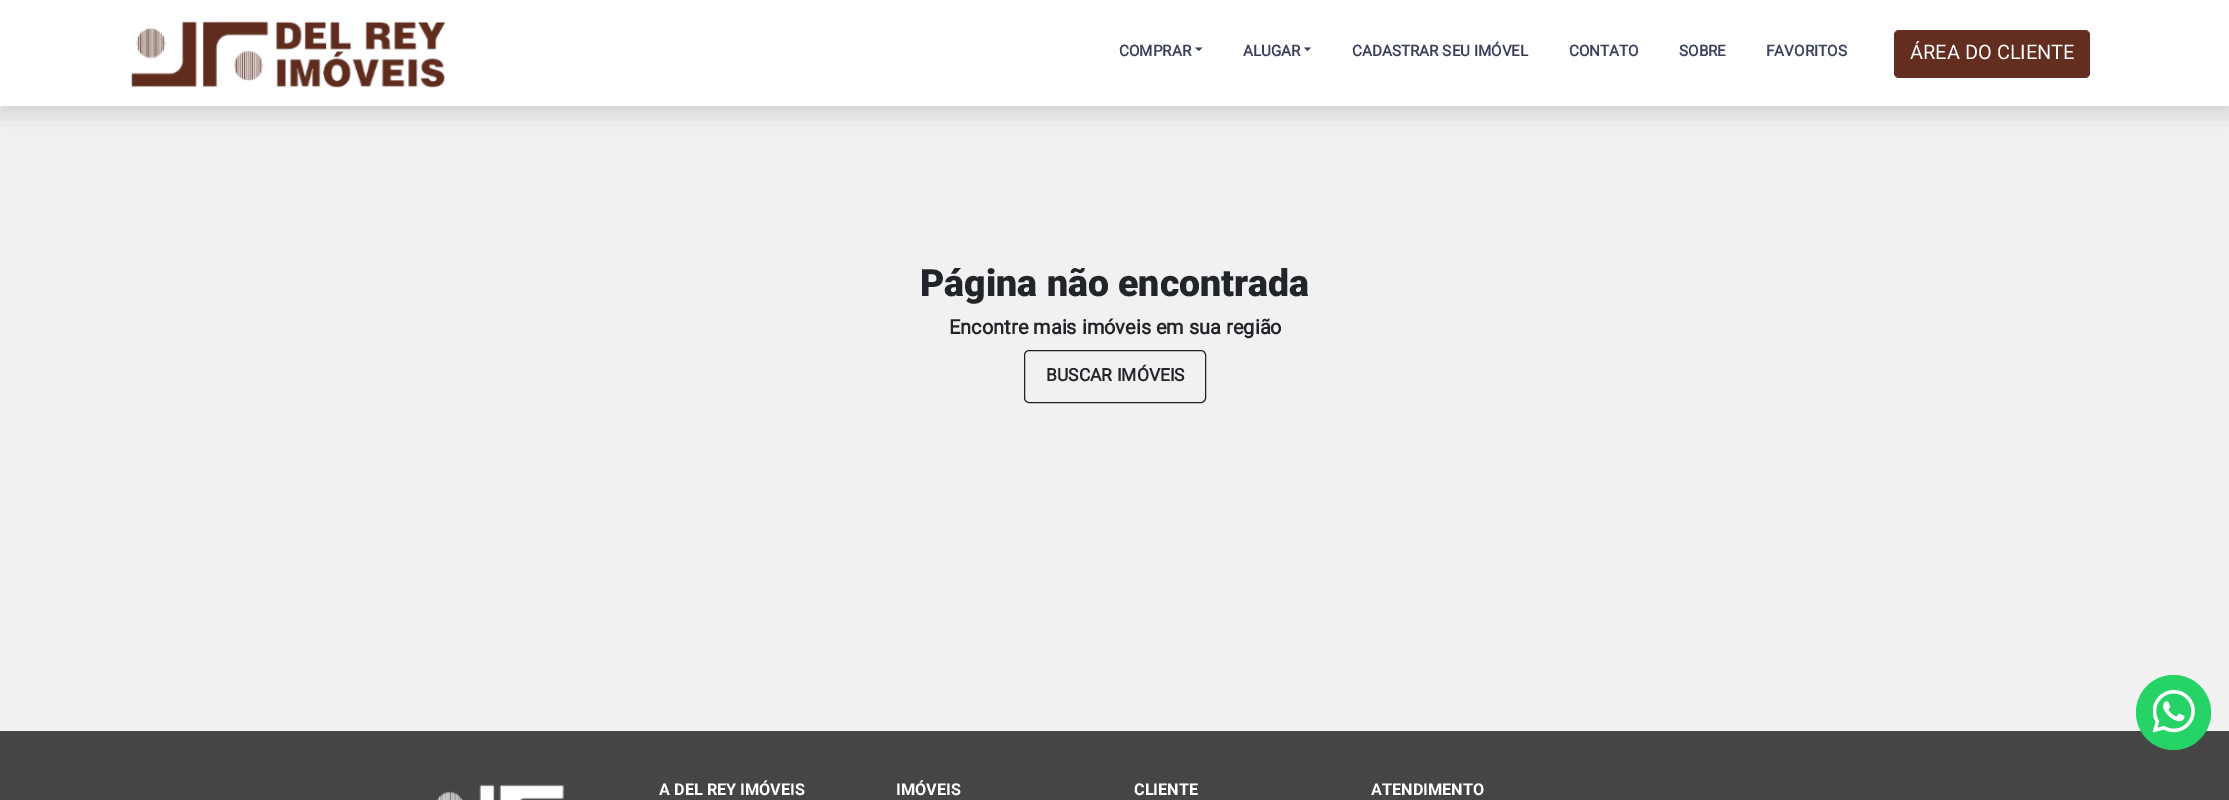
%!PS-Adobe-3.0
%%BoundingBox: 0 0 2229 800
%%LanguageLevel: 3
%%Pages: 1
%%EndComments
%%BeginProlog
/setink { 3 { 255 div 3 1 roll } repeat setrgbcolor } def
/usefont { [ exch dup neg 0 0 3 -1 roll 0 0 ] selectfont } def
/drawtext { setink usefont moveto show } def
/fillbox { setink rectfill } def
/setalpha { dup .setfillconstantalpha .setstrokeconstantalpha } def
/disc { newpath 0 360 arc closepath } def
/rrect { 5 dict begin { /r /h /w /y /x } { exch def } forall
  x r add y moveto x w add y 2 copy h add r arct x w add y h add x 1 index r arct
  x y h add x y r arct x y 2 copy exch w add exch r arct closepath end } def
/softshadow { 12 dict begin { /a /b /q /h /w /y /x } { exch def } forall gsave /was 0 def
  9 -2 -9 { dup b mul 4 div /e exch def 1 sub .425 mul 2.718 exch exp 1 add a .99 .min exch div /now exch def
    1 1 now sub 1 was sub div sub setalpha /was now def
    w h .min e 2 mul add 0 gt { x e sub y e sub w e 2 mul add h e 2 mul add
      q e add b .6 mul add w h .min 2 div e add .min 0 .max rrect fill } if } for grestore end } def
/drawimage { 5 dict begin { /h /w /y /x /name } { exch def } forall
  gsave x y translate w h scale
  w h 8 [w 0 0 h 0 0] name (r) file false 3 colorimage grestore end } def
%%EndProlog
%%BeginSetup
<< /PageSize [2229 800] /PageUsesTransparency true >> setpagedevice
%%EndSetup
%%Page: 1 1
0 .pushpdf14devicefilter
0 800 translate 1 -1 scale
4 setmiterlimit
0 0 2229 800 241 241 241 fillbox
0 0 0 setink
0 8 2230 106 0 10 0.12 softshadow
0 0 2229 106 255 255 255 fillbox
(assets/img1.rgb) 131 21 315 67 drawimage
(COMPRAR) 1119 56 /Roboto-Bold 15.25 58 64 91 drawtext
1195 47.5 moveto 1202.5 47.5 lineto 1199 51 lineto closepath fill
(ALUGAR) 1243 56 /Roboto-Bold 15.25 58 64 91 drawtext
1304 47.5 moveto 1311 47.5 lineto 1307.5 51 lineto closepath fill
(CADASTRAR SEU IMÓVEL) 1352 56 /Roboto-Bold 15.25 58 64 91 drawtext
(CONTATO) 1569 56 /Roboto-Bold 15.25 58 64 91 drawtext
(SOBRE) 1679 56 /Roboto-Bold 15.25 58 64 91 drawtext
(FAVORITOS) 1766 56 /Roboto-Bold 15.25 58 64 91 drawtext
99 46 32 setink
1894 30 196 48 5 rrect fill
(ÁREA DO CLIENTE) 1910 59 /Roboto-Regular 20 255 255 255 drawtext
(Página não encontrada) 920 296 /Roboto-Black 37.5 33 37 41 drawtext
(Encontre mais imóveis em sua região) 949 334 /Roboto-Bold 20 33 37 41 drawtext
34 35 40 setink
1024.5 350.5 181 52 4.5 rrect stroke
(BUSCAR IMÓVEIS) 1046 381 /Roboto-Bold 17.5 33 37 41 drawtext
0 731 2229 69 69 69 69 fillbox
37 211 102 setink
2173.5 712.5 37.5 disc fill
(assets/img2.rgb) 2153 690 42 43 drawimage
(assets/img3.rgb) 436 784 129 16 drawimage
(A DEL REY IMÓVEIS) 659 795 /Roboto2-Bold 16.25 255 255 255 drawtext
(IMÓVEIS) 896 795 /Roboto2-Bold 16.25 255 255 255 drawtext
(CLIENTE) 1134 795 /Roboto2-Bold 16.25 255 255 255 drawtext
(ATENDIMENTO) 1371 795 /Roboto2-Bold 16.25 255 255 255 drawtext
.poppdf14devicefilter showpage
%%EOF
